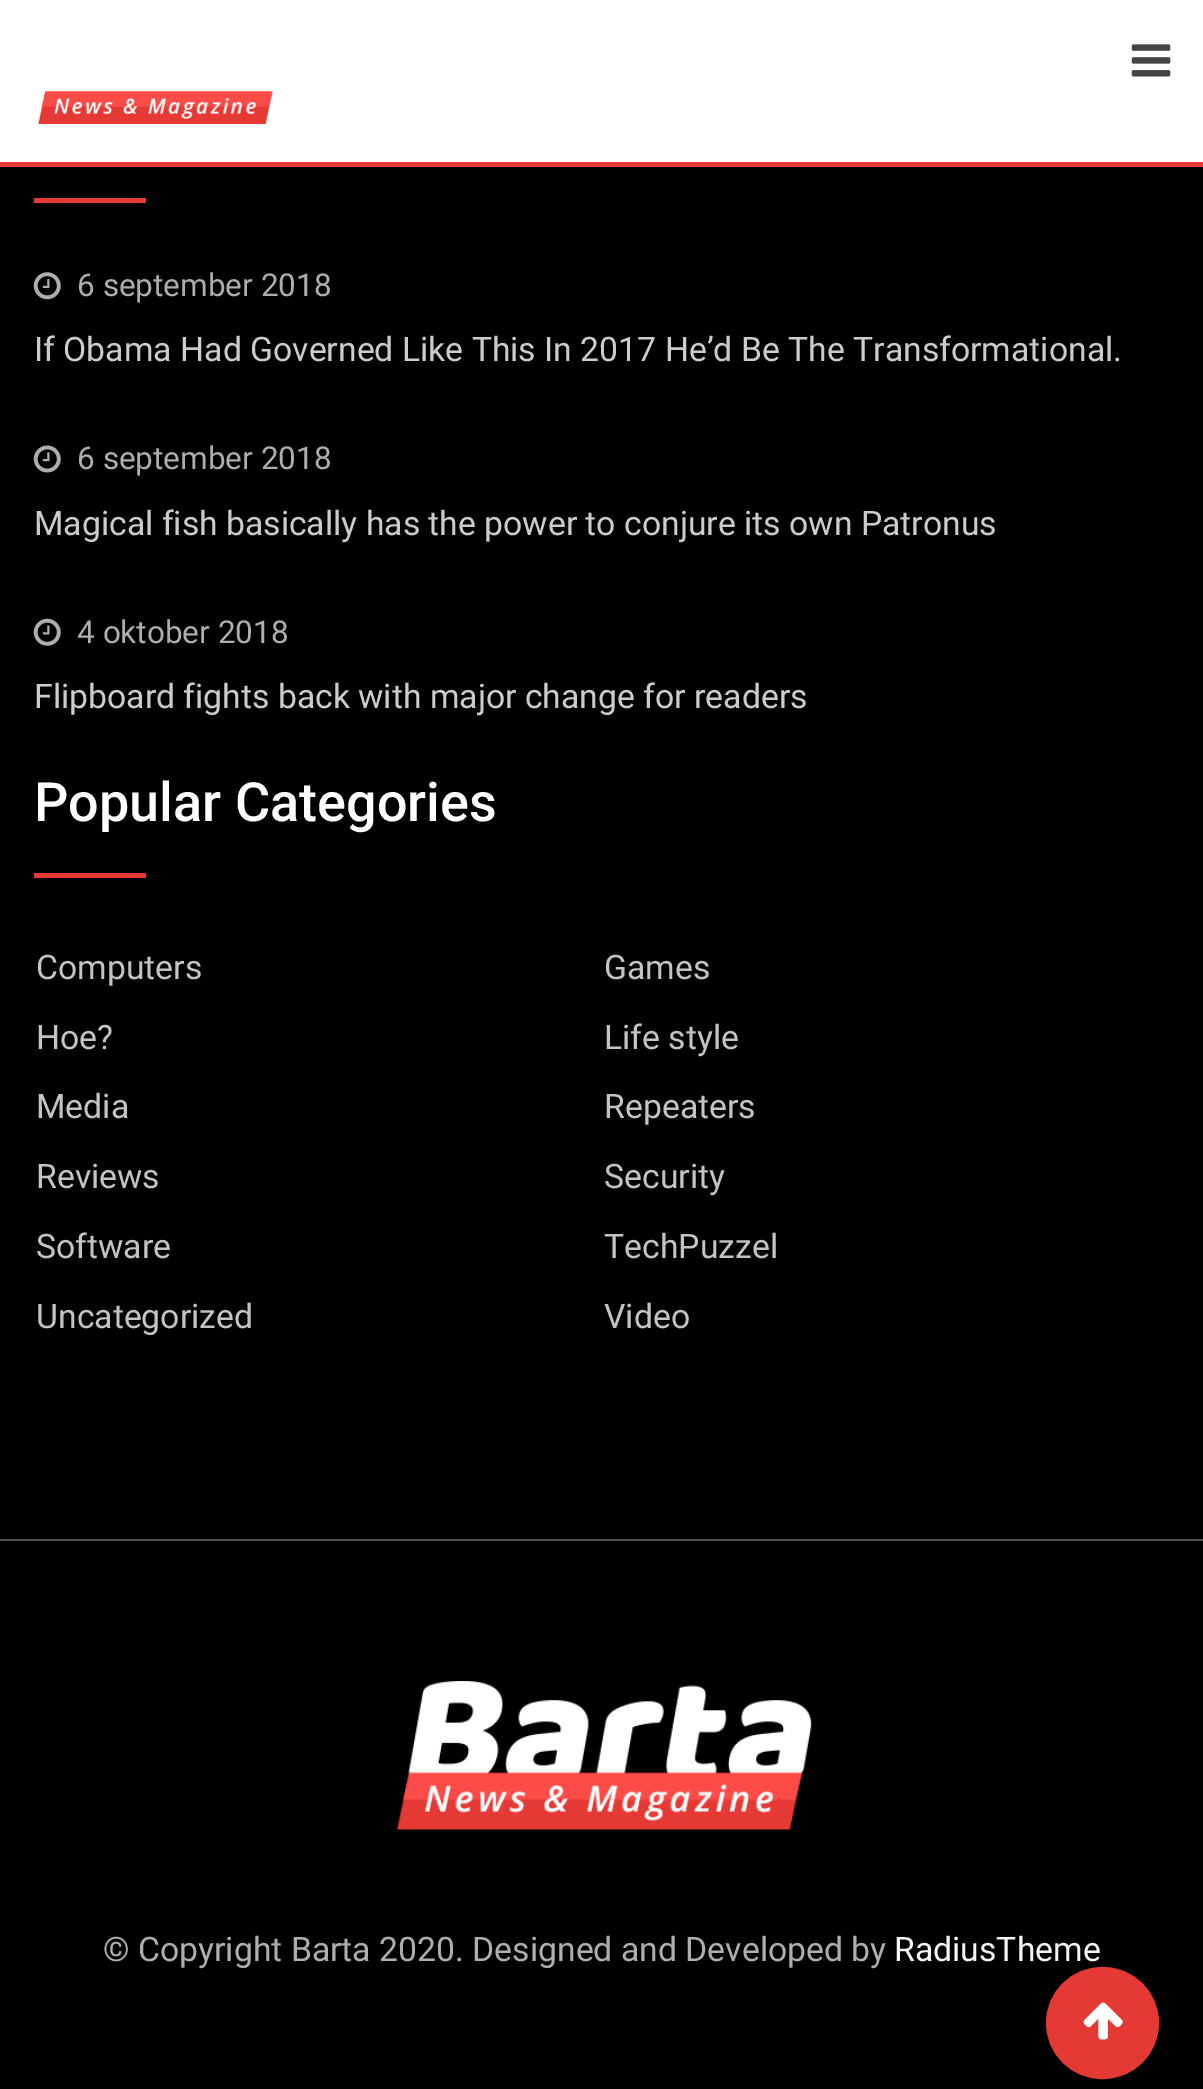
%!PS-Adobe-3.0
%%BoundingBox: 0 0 1203 2089
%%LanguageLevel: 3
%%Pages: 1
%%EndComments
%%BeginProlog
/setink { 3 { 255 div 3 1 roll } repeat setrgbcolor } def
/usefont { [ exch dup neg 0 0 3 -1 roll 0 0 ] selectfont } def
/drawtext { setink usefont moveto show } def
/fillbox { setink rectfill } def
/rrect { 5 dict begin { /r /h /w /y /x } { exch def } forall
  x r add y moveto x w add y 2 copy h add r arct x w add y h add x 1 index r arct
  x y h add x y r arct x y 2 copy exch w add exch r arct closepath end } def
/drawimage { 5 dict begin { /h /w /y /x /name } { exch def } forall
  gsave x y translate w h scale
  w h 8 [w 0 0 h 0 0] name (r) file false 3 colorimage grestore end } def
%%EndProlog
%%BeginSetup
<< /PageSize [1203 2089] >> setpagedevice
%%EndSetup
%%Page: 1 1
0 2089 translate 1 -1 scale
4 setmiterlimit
0 0 1203 2089 0 0 0 fillbox
0 0 1203 162 255 255 255 fillbox
0 162 1203 5 229 57 53 fillbox
(assets/img1.rgb) 1131 44 40 33 drawimage
(assets/img2.rgb) 38 90 235 35 drawimage
34 198 112 5 229 57 53 fillbox
(assets/img3.rgb) 33 272 28 28 drawimage
(6 september 2018) 77 296 /Roboto-Regular 31.5 174 174 174 drawtext
(If Obama Had Governed Like This In 2017 He’d Be The Transformational.) 34 361 /Roboto-Regular 33.75 204 204 204 drawtext
(assets/img4.rgb) 33 445 28 28 drawimage
(6 september 2018) 77 469 /Roboto-Regular 31.5 174 174 174 drawtext
(Magical fish basically has the power to conjure its own Patronus) 34 535 /Roboto-Regular 33.75 204 204 204 drawtext
(assets/img5.rgb) 33 618 28 28 drawimage
(4 oktober 2018) 77 643 /Roboto-Regular 31.5 174 174 174 drawtext
(Flipboard fights back with major change for readers) 34 708 /Roboto-Regular 33.75 204 204 204 drawtext
(Popular Categories) 34 821 /Roboto-Medium 54 255 255 255 drawtext
34 873 112 5 229 57 53 fillbox
(Computers) 36 979 /Roboto-Regular 33.75 196 196 196 drawtext
(Games) 604 979 /Roboto-Regular 33.75 196 196 196 drawtext
(Hoe?) 36 1049 /Roboto-Regular 33.75 196 196 196 drawtext
(Life style) 604 1049 /Roboto-Regular 33.75 196 196 196 drawtext
(Media) 36 1118 /Roboto-Regular 33.75 196 196 196 drawtext
(Repeaters) 604 1118 /Roboto-Regular 33.75 196 196 196 drawtext
(Reviews) 36 1188 /Roboto-Regular 33.75 196 196 196 drawtext
(Security) 604 1188 /Roboto-Regular 33.75 196 196 196 drawtext
(Software) 36 1258 /Roboto-Regular 33.75 196 196 196 drawtext
(TechPuzzel) 604 1258 /Roboto-Regular 33.75 196 196 196 drawtext
(Uncategorized) 36 1328 /Roboto-Regular 33.75 196 196 196 drawtext
(Video) 604 1328 /Roboto-Regular 33.75 196 196 196 drawtext
0 1539 1203 2 77 77 77 fillbox
(assets/img6.rgb) 397 1681 415 149 drawimage
(© Copyright Barta 2020. Designed and Developed by) 103 1961 /Roboto-Regular 33.75 174 174 174 drawtext
(RadiusTheme) 894 1961 /Roboto-Regular 33.75 245 245 245 drawtext
229 57 53 setink
1048.5 1969.5 108 107 53.5 rrect gsave fill grestore
5 setlinewidth
stroke
(assets/img7.rgb) 1083 2002 40 38 drawimage
showpage
%%EOF
